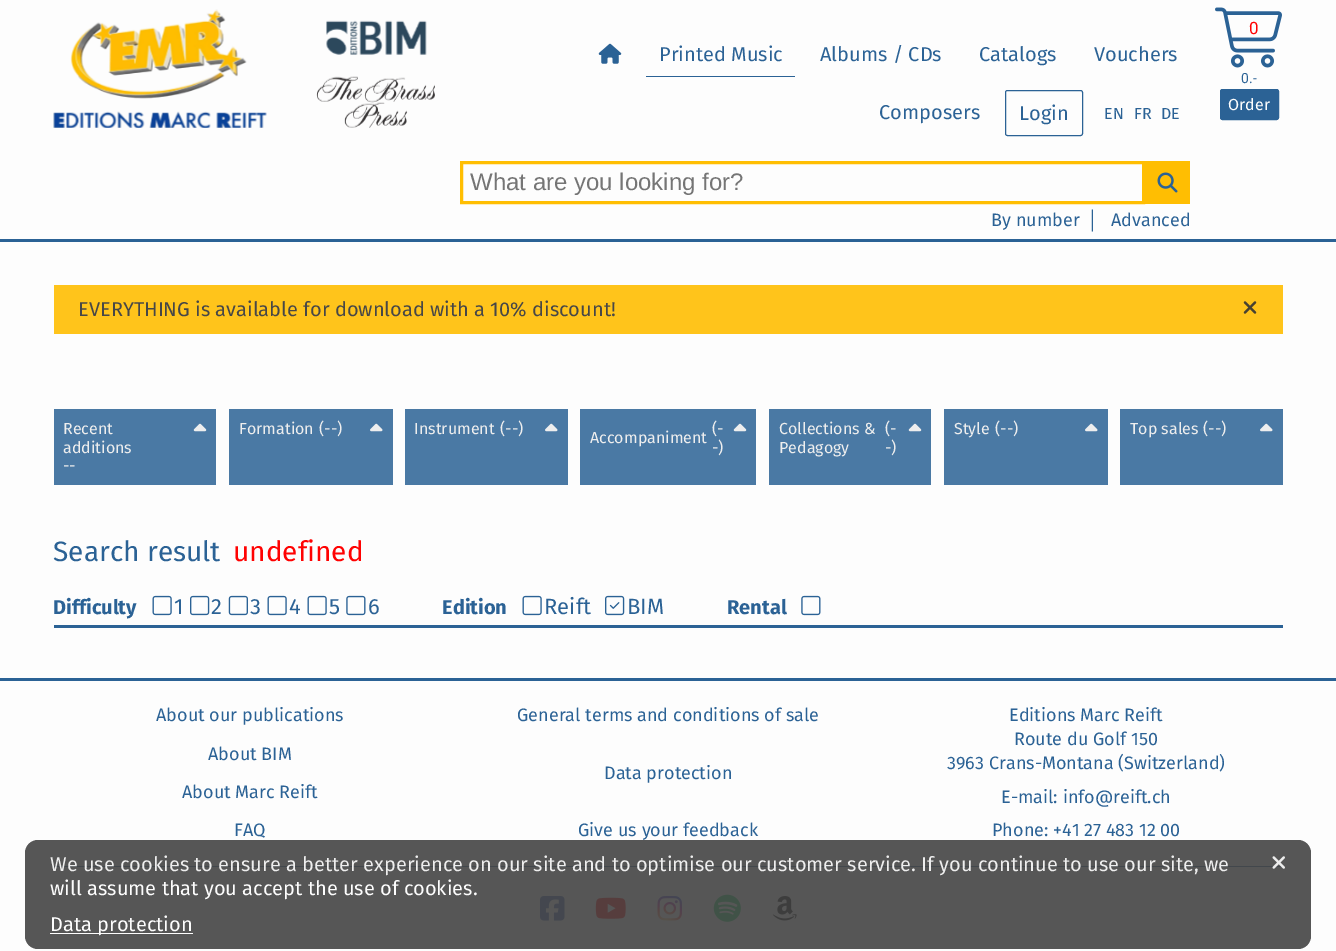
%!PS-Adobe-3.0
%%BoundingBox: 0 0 1336 951
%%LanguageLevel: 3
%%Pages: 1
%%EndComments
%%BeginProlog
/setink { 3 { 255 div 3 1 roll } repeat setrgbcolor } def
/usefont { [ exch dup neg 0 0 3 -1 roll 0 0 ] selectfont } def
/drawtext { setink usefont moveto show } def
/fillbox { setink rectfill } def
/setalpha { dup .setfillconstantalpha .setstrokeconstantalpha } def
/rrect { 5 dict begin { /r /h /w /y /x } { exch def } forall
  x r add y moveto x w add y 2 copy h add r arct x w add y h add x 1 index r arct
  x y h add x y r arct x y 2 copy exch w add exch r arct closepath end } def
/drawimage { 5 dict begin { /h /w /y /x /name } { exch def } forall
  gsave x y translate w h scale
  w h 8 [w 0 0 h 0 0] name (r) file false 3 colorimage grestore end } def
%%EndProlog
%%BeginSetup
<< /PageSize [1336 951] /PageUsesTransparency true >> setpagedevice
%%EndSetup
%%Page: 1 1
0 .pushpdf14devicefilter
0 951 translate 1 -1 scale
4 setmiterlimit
0 0 1336 951 253 253 253 fillbox
0 239 1336 3 43 98 149 fillbox
(assets/img1.rgb) 53 9 214 119 drawimage
(assets/img2.rgb) 326 20 101 35 drawimage
(assets/img3.rgb) 316 76 119 52 drawimage
(assets/img4.rgb) 598 43 24 21 drawimage
646 76 149 1 43 98 149 fillbox
(Printed Music) 659 61 /FiraSans-Regular 20 43 98 149 drawtext
(Albums / CDs) 820 61 /FiraSans-Regular 20 43 98 149 drawtext
(Catalogs) 979 61 /FiraSans-Regular 20 43 98 149 drawtext
(Vouchers) 1094 61 /FiraSans-Regular 20 43 98 149 drawtext
(Composers) 879 119 /FiraSans-Regular 20 43 98 149 drawtext
1005.5 90.5 77 45 2 rrect stroke
(Login) 1019 120 /FiraSans-Regular 20 43 98 149 drawtext
(EN) 1104 119 /FiraSans-Regular 16 43 98 149 drawtext
(FR) 1134 119 /FiraSans-Regular 16 43 98 149 drawtext
(DE) 1161 119 /FiraSans-Regular 16 43 98 149 drawtext
255 190 2 setink
3 setlinewidth
461.5 162.5 682 40 rectstroke
(What are you looking for?) 470 190 /LiberationSans-Regular 24 117 117 117 drawtext
1145 161 45 43 255 190 2 fillbox
(assets/img5.rgb) 1157 172 21 21 drawimage
(By number) 991 226 /FiraSans-Regular 18 43 98 149 drawtext
(│) 1086 226 /LiberationSerif-Regular 18 43 98 149 drawtext
(Advanced) 1111 226 /FiraSans-Regular 18 43 98 149 drawtext
(assets/img6.rgb) 1215 7 67 61 drawimage
(0) 1249 34 /Roboto-Regular 17 255 2 2 drawtext
(0.-) 1241 83 /Roboto-Regular 14 43 98 149 drawtext
1220.5 89.5 58 30 2 rrect gsave fill grestore
1 setlinewidth
stroke
(Order) 1228 110 /FiraSans-Regular 16 253 253 253 drawtext
54 285 1229 49 255 196 27 fillbox
(EVERYTHING is available for download with a 10% discount!) 78 316 /FiraSans-Regular 20 71 71 71 drawtext
(assets/img7.rgb) 1243 301 14 13 drawimage
54 409 162 76 74 121 164 fillbox
(Recent) 63 434 /FiraSans-Regular 16 238 238 238 drawtext
(additions) 63 453 /FiraSans-Regular 16 238 238 238 drawtext
(--) 63 471 /FiraSans-Regular 16 238 238 238 drawtext
(assets/img8.rgb) 193 423 14 9 drawimage
229 409 164 76 74 121 164 fillbox
(Formation) 239 434 /FiraSans-Regular 16 238 238 238 drawtext
(\(--\)) 319 434 /FiraSans-Regular 16 238 238 238 drawtext
(assets/img9.rgb) 370 423 13 9 drawimage
405 409 163 76 74 121 164 fillbox
(Instrument) 414 434 /FiraSans-Regular 16 238 238 238 drawtext
(\(--\)) 500 434 /FiraSans-Regular 16 238 238 238 drawtext
(assets/img9.rgb) 545 423 13 9 drawimage
580 409 176 76 74 121 164 fillbox
(Accompaniment) 590 443 /FiraSans-Regular 16 238 238 238 drawtext
(\(-) 712 434 /FiraSans-Regular 16 238 238 238 drawtext
(-\)) 712 453 /FiraSans-Regular 16 238 238 238 drawtext
(assets/img8.rgb) 733 423 14 9 drawimage
769 409 162 76 74 121 164 fillbox
(Collections &) 779 434 /FiraSans-Regular 16 238 238 238 drawtext
(Pedagogy) 779 453 /FiraSans-Regular 16 238 238 238 drawtext
(\(-) 885 434 /FiraSans-Regular 16 238 238 238 drawtext
(-\)) 885 453 /FiraSans-Regular 16 238 238 238 drawtext
(assets/img8.rgb) 908 423 14 9 drawimage
944 409 164 76 74 121 164 fillbox
(Style) 954 434 /FiraSans-Regular 16 238 238 238 drawtext
(\(--\)) 995 434 /FiraSans-Regular 16 238 238 238 drawtext
(assets/img9.rgb) 1085 423 13 9 drawimage
1120 409 163 76 74 121 164 fillbox
(Top sales) 1130 434 /FiraSans-Regular 16 238 238 238 drawtext
(\(--\)) 1203 434 /FiraSans-Regular 16 238 238 238 drawtext
(assets/img9.rgb) 1260 423 13 9 drawimage
54 625 1229 3 43 98 149 fillbox
(Search result) 53 561 /FiraSans-Regular 28 43 98 149 drawtext
(undefined) 233 561 /FiraSans-Regular 28 255 2 2 drawtext
(Difficulty) 53 614 /FiraSans-Bold 20 43 98 149 drawtext
(assets/img10.rgb) 152 595 20 21 drawimage
(1) 174 614 /FiraSans-Regular 22 43 98 149 drawtext
(assets/img11.rgb) 190 595 20 21 drawimage
(2) 211 614 /FiraSans-Regular 22 43 98 149 drawtext
(assets/img12.rgb) 228 595 20 21 drawimage
(3) 250 614 /FiraSans-Regular 22 43 98 149 drawtext
(assets/img10.rgb) 267 595 20 21 drawimage
(4) 289 614 /FiraSans-Regular 22 43 98 149 drawtext
(assets/img10.rgb) 307 595 20 21 drawimage
(5) 329 614 /FiraSans-Regular 22 43 98 149 drawtext
(assets/img13.rgb) 346 595 20 21 drawimage
(6) 368 614 /FiraSans-Regular 22 43 98 149 drawtext
(Edition) 442 614 /FiraSans-Bold 20 43 98 149 drawtext
(assets/img10.rgb) 522 595 20 21 drawimage
(Reift) 544 614 /FiraSans-Regular 22 43 98 149 drawtext
(assets/img14.rgb) 605 595 20 21 drawimage
(BIM) 627 614 /FiraSans-Regular 22 43 98 149 drawtext
(Rental) 727 614 /FiraSans-Bold 20 43 98 149 drawtext
(assets/img13.rgb) 801 595 20 21 drawimage
0 678 1336 3 43 98 149 fillbox
(About our publications) 156 721 /FiraSans-Regular 18 43 98 149 drawtext
(About BIM) 208 760 /FiraSans-Regular 18 43 98 149 drawtext
(About Marc Reift) 182 798 /FiraSans-Regular 18 43 98 149 drawtext
(FAQ) 234 836 /FiraSans-Regular 18 43 98 149 drawtext
(General terms and conditions of sale) 517 721 /FiraSans-Regular 18 43 98 149 drawtext
(Data protection) 604 779 /FiraSans-Regular 18 43 98 149 drawtext
(Give us your feedback) 578 836 /FiraSans-Regular 18 43 98 149 drawtext
(Editions Marc Reift) 1009 721 /FiraSans-Regular 18 43 98 149 drawtext
(Route du Golf 150) 1014 745 /FiraSans-Regular 18 43 98 149 drawtext
(3963 Crans-Montana \(Switzerland\)) 947 769 /FiraSans-Regular 18 43 98 149 drawtext
(E-mail: info@reift.ch) 1001 803 /FiraSans-Regular 18 43 98 149 drawtext
(Phone: +41 27 483 12 00) 992 836 /FiraSans-Regular 18 43 98 149 drawtext
54 866 1229 1 43 98 149 fillbox
(assets/img15.rgb) 540 896 25 25 drawimage
(assets/img16.rgb) 595 897 31 22 drawimage
(assets/img17.rgb) 657 896 25 25 drawimage
(assets/img18.rgb) 713 894 28 28 drawimage
(assets/img19.rgb) 772 896 25 25 drawimage
0.9 setalpha
68 68 68 setink
25 840 1286 109 13 rrect fill
1 setalpha
(We use cookies to ensure a better experience on our site and to optimise our customer service. If you continue to use our site, we) 50 871 /FiraSans-Regular 20 238 238 238 drawtext
(will assume that you accept the use of cookies.) 50 895 /FiraSans-Regular 20 253 253 253 drawtext
50 933 143 1 253 253 253 fillbox
(Data protection) 50 931 /FiraSans-Regular 20 253 253 253 drawtext
(assets/img20.rgb) 1272 856 13 13 drawimage
.poppdf14devicefilter showpage
%%EOF
